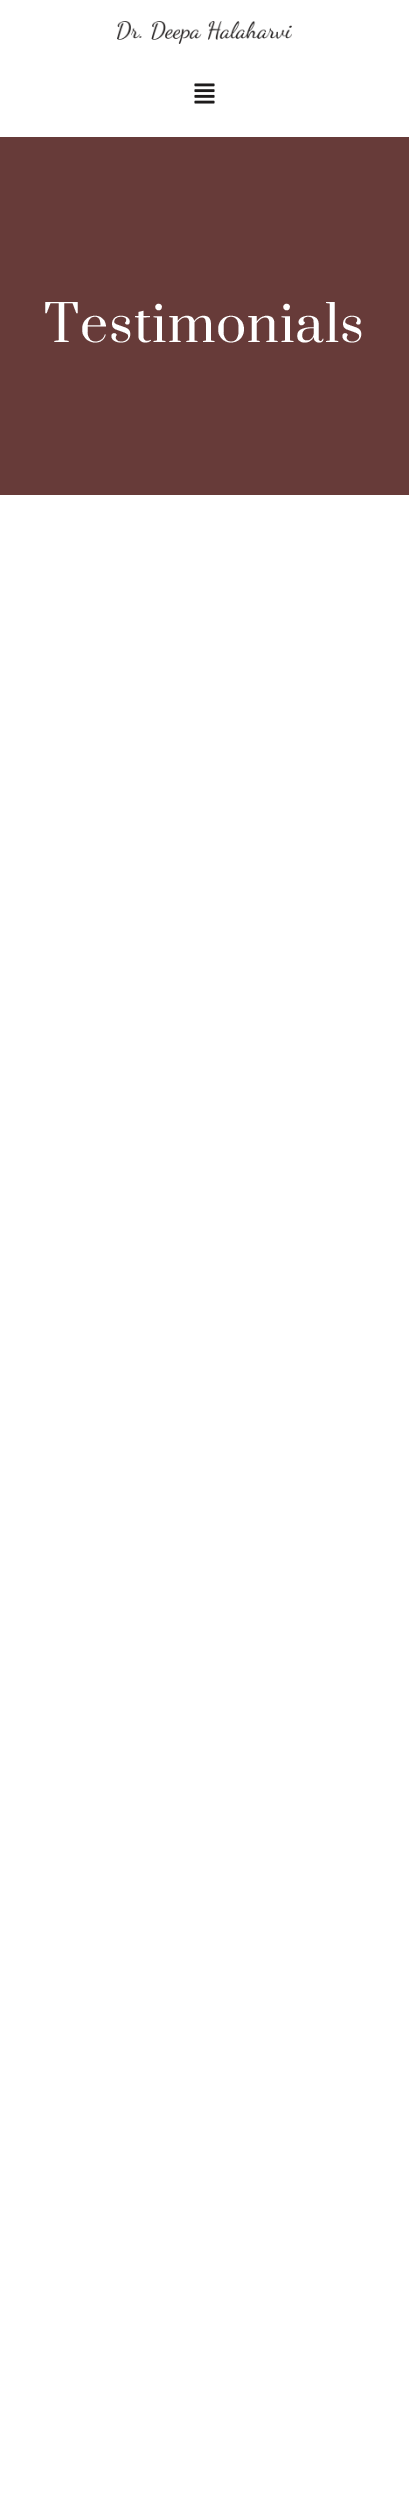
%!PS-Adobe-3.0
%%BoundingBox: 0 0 409 2496
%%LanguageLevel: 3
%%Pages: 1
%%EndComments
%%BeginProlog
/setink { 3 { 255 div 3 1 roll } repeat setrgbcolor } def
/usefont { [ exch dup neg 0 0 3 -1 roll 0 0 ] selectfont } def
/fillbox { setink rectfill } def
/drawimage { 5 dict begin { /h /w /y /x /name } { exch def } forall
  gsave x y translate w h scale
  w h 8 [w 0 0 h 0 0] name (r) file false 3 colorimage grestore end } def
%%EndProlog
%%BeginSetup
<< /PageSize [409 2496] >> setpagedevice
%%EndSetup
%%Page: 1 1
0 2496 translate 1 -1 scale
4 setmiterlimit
0 0 409 2496 255 255 255 fillbox
(assets/img1.rgb) 117 21 175 23 drawimage
(assets/img2.rgb) 194 83 21 21 drawimage
0 137 409 358 103 59 57 fillbox
/Prata-Regular 50 usefont
255 255 255 setink
44 342 moveto 1 0 (Testimonials) ashow
showpage
%%EOF
